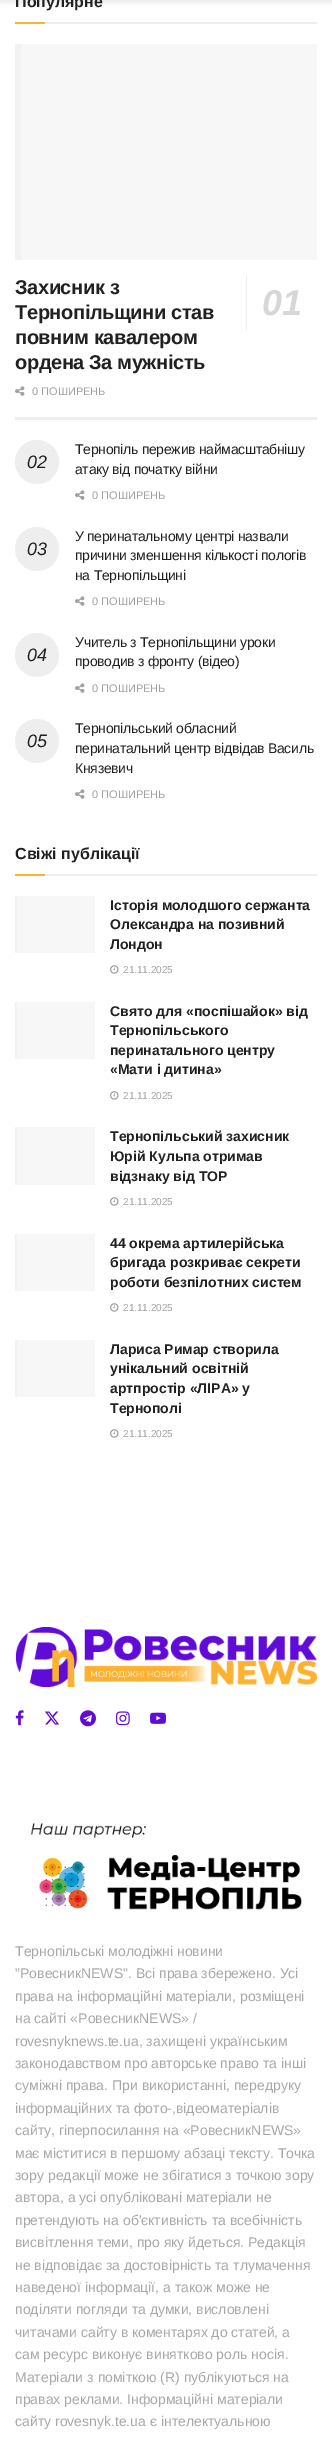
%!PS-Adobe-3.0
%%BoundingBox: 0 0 332 2442
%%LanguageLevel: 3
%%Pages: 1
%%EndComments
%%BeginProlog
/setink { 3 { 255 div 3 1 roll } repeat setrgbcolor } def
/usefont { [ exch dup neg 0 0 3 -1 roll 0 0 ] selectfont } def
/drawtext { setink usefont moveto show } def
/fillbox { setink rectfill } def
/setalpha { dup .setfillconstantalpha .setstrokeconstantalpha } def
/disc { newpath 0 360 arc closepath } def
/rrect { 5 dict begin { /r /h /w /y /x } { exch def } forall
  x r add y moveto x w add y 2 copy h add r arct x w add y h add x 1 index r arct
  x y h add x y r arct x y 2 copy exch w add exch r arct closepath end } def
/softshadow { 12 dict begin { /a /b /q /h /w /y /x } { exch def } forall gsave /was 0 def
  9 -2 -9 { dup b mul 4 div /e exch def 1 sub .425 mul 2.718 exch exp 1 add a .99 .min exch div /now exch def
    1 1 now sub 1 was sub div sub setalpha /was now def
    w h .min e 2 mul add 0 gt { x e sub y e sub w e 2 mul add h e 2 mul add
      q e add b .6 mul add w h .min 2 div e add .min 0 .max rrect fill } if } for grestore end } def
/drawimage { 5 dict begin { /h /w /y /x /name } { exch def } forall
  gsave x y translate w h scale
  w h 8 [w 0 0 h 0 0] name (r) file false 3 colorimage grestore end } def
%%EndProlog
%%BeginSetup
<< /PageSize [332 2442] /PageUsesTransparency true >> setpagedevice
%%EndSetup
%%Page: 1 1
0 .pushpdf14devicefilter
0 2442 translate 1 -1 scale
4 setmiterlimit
0 0 332 2442 255 255 255 fillbox
0 0 0 setink
0 -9 332 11 0 3 0.1 softshadow
45 22 272 2 238 238 238 fillbox
(Популярне) 15 7 /LiberationSans-Bold 16 33 33 33 drawtext
15 22 30 2 252 178 50 fillbox
15 417 302 3 238 238 238 fillbox
21 44 296 216 247 247 247 fillbox
15 44 6 216 242 242 242 fillbox
/LiberationSans-Bold 20 usefont
33 33 33 setink
15 294 moveto -0.4 0 (Захисник з) ashow
15 319 moveto -0.4 0 (Тернопільщини став) ashow
246 275 1 56 238 238 238 fillbox
/LiberationSans-BoldItalic 36 usefont
215 215 215 setink
262 315 moveto -0.4 0 (01) ashow
/LiberationSans-Bold 20 usefont
33 33 33 setink
15 344 moveto -0.4 0 (повним кавалером) ashow
15 369 moveto -0.4 0 (ордена За мужність) ashow
(assets/img1.rgb) 15 386 10 10 drawimage
(0 ПОШИРЕНЬ) 32 395 /LiberationSans-Regular 11 160 160 160 drawtext
/LiberationSans-Regular 14 usefont
33 33 33 setink
75 454 moveto -0.3 0 (Тернопіль пережив наймасштабнішу) ashow
238 238 238 setink
37 462 22 disc fill
/LiberationSans-Italic 18 usefont
33 33 33 setink
27 468 moveto -0.3 0 (02) ashow
/LiberationSans-Regular 14 usefont
75 474 moveto -0.3 0 (атаку від початку війни) ashow
(assets/img1.rgb) 75 490 10 10 drawimage
(0 ПОШИРЕНЬ) 92 499 /LiberationSans-Regular 11 160 160 160 drawtext
/LiberationSans-Regular 14 usefont
33 33 33 setink
75 541 moveto -0.3 0 (У перинатальному центрі назвали) ashow
238 238 238 setink
37 549 22 disc fill
/LiberationSans-Italic 18 usefont
33 33 33 setink
27 555 moveto -0.3 0 (03) ashow
/LiberationSans-Regular 14 usefont
75 560 moveto -0.3 0 (причини зменшення кількості пологів) ashow
75 580 moveto -0.3 0 (на Тернопільщині) ashow
(assets/img1.rgb) 75 596 10 10 drawimage
(0 ПОШИРЕНЬ) 92 605 /LiberationSans-Regular 11 160 160 160 drawtext
/LiberationSans-Regular 14 usefont
33 33 33 setink
75 647 moveto -0.3 0 (Учитель з Тернопільщини уроки) ashow
238 238 238 setink
37 655 22 disc fill
/LiberationSans-Italic 18 usefont
33 33 33 setink
27 661 moveto -0.3 0 (04) ashow
/LiberationSans-Regular 14 usefont
75 666 moveto -0.3 0 (проводив з фронту \(відео\)) ashow
(assets/img1.rgb) 75 683 10 10 drawimage
(0 ПОШИРЕНЬ) 92 692 /LiberationSans-Regular 11 160 160 160 drawtext
/LiberationSans-Regular 14 usefont
33 33 33 setink
75 733 moveto -0.3 0 (Тернопільський обласний) ashow
238 238 238 setink
37 741 22 disc fill
/LiberationSans-Italic 18 usefont
33 33 33 setink
27 747 moveto -0.3 0 (05) ashow
/LiberationSans-Regular 14 usefont
75 753 moveto -0.3 0 (перинатальний центр відвідав Василь) ashow
75 773 moveto -0.3 0 (Князевич) ashow
(assets/img1.rgb) 75 789 10 10 drawimage
(0 ПОШИРЕНЬ) 92 798 /LiberationSans-Regular 11 160 160 160 drawtext
45 874 272 2 238 238 238 fillbox
(Свіжі публікації) 15 859 /LiberationSans-Bold 16 33 33 33 drawtext
15 874 30 2 252 178 50 fillbox
17 896 78 57 247 247 247 fillbox
15 896 2 57 242 242 242 fillbox
(Історія молодшого сержанта) 110 910 /LiberationSans-Bold 14 33 33 33 drawtext
(Олександра на позивний) 110 929 /LiberationSans-Bold 14 33 33 33 drawtext
(Лондон) 110 949 /LiberationSans-Bold 14 33 33 33 drawtext
(assets/img2.rgb) 110 965 9 9 drawimage
(21.11.2025) 123 973 /LiberationSans-Regular 10 160 160 160 drawtext
17 1002 78 57 247 247 247 fillbox
15 1002 2 57 242 242 242 fillbox
(Свято для «поспішайок» від) 110 1016 /LiberationSans-Bold 14 33 33 33 drawtext
(Тернопільського) 110 1035 /LiberationSans-Bold 14 33 33 33 drawtext
(перинатального центру) 110 1055 /LiberationSans-Bold 14 33 33 33 drawtext
(«Мати і дитина») 110 1074 /LiberationSans-Bold 14 33 33 33 drawtext
(assets/img2.rgb) 110 1091 9 9 drawimage
(21.11.2025) 123 1099 /LiberationSans-Regular 10 160 160 160 drawtext
17 1127 78 58 247 247 247 fillbox
15 1127 2 58 242 242 242 fillbox
(Тернопільський захисник) 110 1141 /LiberationSans-Bold 14 33 33 33 drawtext
(Юрій Кульпа отримав) 110 1161 /LiberationSans-Bold 14 33 33 33 drawtext
(відзнаку від ТОР) 110 1181 /LiberationSans-Bold 14 33 33 33 drawtext
(assets/img2.rgb) 110 1197 9 9 drawimage
(21.11.2025) 123 1205 /LiberationSans-Regular 10 160 160 160 drawtext
17 1234 78 57 247 247 247 fillbox
15 1234 2 57 242 242 242 fillbox
(44 окрема артилерійська) 110 1248 /LiberationSans-Bold 14 33 33 33 drawtext
(бригада розкриває секрети) 110 1267 /LiberationSans-Bold 14 33 33 33 drawtext
(роботи безпілотних систем) 110 1287 /LiberationSans-Bold 14 33 33 33 drawtext
(assets/img2.rgb) 110 1303 9 9 drawimage
(21.11.2025) 123 1311 /LiberationSans-Regular 10 160 160 160 drawtext
17 1340 78 57 247 247 247 fillbox
15 1340 2 57 242 242 242 fillbox
(Лариса Римар створила) 110 1354 /LiberationSans-Bold 14 33 33 33 drawtext
(унікальний освітній) 110 1373 /LiberationSans-Bold 14 33 33 33 drawtext
(артпростір «ЛІРА» у) 110 1393 /LiberationSans-Bold 14 33 33 33 drawtext
(Тернополі) 110 1413 /LiberationSans-Bold 14 33 33 33 drawtext
(assets/img2.rgb) 110 1429 9 9 drawimage
(21.11.2025) 123 1437 /LiberationSans-Regular 10 160 160 160 drawtext
(assets/img3.rgb) 15 1627 302 60 drawimage
(assets/img4.rgb) 15 1710 9 16 drawimage
(assets/img5.rgb) 45 1711 15 14 drawimage
(assets/img6.rgb) 80 1710 16 17 drawimage
(assets/img7.rgb) 116 1711 14 15 drawimage
(assets/img8.rgb) 150 1712 16 12 drawimage
(assets/img9.rgb) 30 1823 272 87 drawimage
(Тернопільські молодіжні новини) 15 1956 /LiberationSans-Regular 14 168 168 170 drawtext
("РовесникNEWS". Всі права збережено. Усі) 15 1978 /LiberationSans-Regular 14 168 168 170 drawtext
(права на інформаційні матеріали, розміщені) 15 2001 /LiberationSans-Regular 14 168 168 170 drawtext
(на сайті «РовесникNEWS» /) 15 2023 /LiberationSans-Regular 14 168 168 170 drawtext
(rovesnyknews.te.ua, захищені українським) 15 2046 /LiberationSans-Regular 14 168 168 170 drawtext
(законодавством про авторське право та інші) 15 2068 /LiberationSans-Regular 14 168 168 170 drawtext
(суміжні права. При використанні, передруку) 15 2090 /LiberationSans-Regular 14 168 168 170 drawtext
(інформаційних та фото-,відеоматеріалів) 15 2113 /LiberationSans-Regular 14 168 168 170 drawtext
(сайту, гіперпосилання на «РовесникNEWS») 15 2135 /LiberationSans-Regular 14 168 168 170 drawtext
(має міститися в першому абзаці тексту. Точка) 15 2158 /LiberationSans-Regular 14 168 168 170 drawtext
(зору редакції може не збігатися з точкою зору) 15 2180 /LiberationSans-Regular 14 168 168 170 drawtext
(автора, а усі опубліковані матеріали не) 15 2202 /LiberationSans-Regular 14 168 168 170 drawtext
(претендують на об'єктивність та всебічність) 15 2225 /LiberationSans-Regular 14 168 168 170 drawtext
(висвітлення теми, про яку йдеться. Редакція) 15 2247 /LiberationSans-Regular 14 168 168 170 drawtext
(не відповідає за достовірність та тлумачення) 15 2270 /LiberationSans-Regular 14 168 168 170 drawtext
(наведеної інформації, а також може не) 15 2292 /LiberationSans-Regular 14 168 168 170 drawtext
(поділяти погляди та думки, висловлені) 15 2314 /LiberationSans-Regular 14 168 168 170 drawtext
(читачами сайту в коментарях до статей, а) 15 2337 /LiberationSans-Regular 14 168 168 170 drawtext
(сам ресурс виконує винятково роль носія.) 15 2359 /LiberationSans-Regular 14 168 168 170 drawtext
(Матеріали з поміткою \(R\) публікуються на) 15 2382 /LiberationSans-Regular 14 168 168 170 drawtext
(правах реклами. Інформаційні матеріали) 15 2404 /LiberationSans-Regular 14 168 168 170 drawtext
(сайту rovesnyk.te.ua є інтелектуальною) 15 2426 /LiberationSans-Regular 14 168 168 170 drawtext
.poppdf14devicefilter showpage
%%EOF
